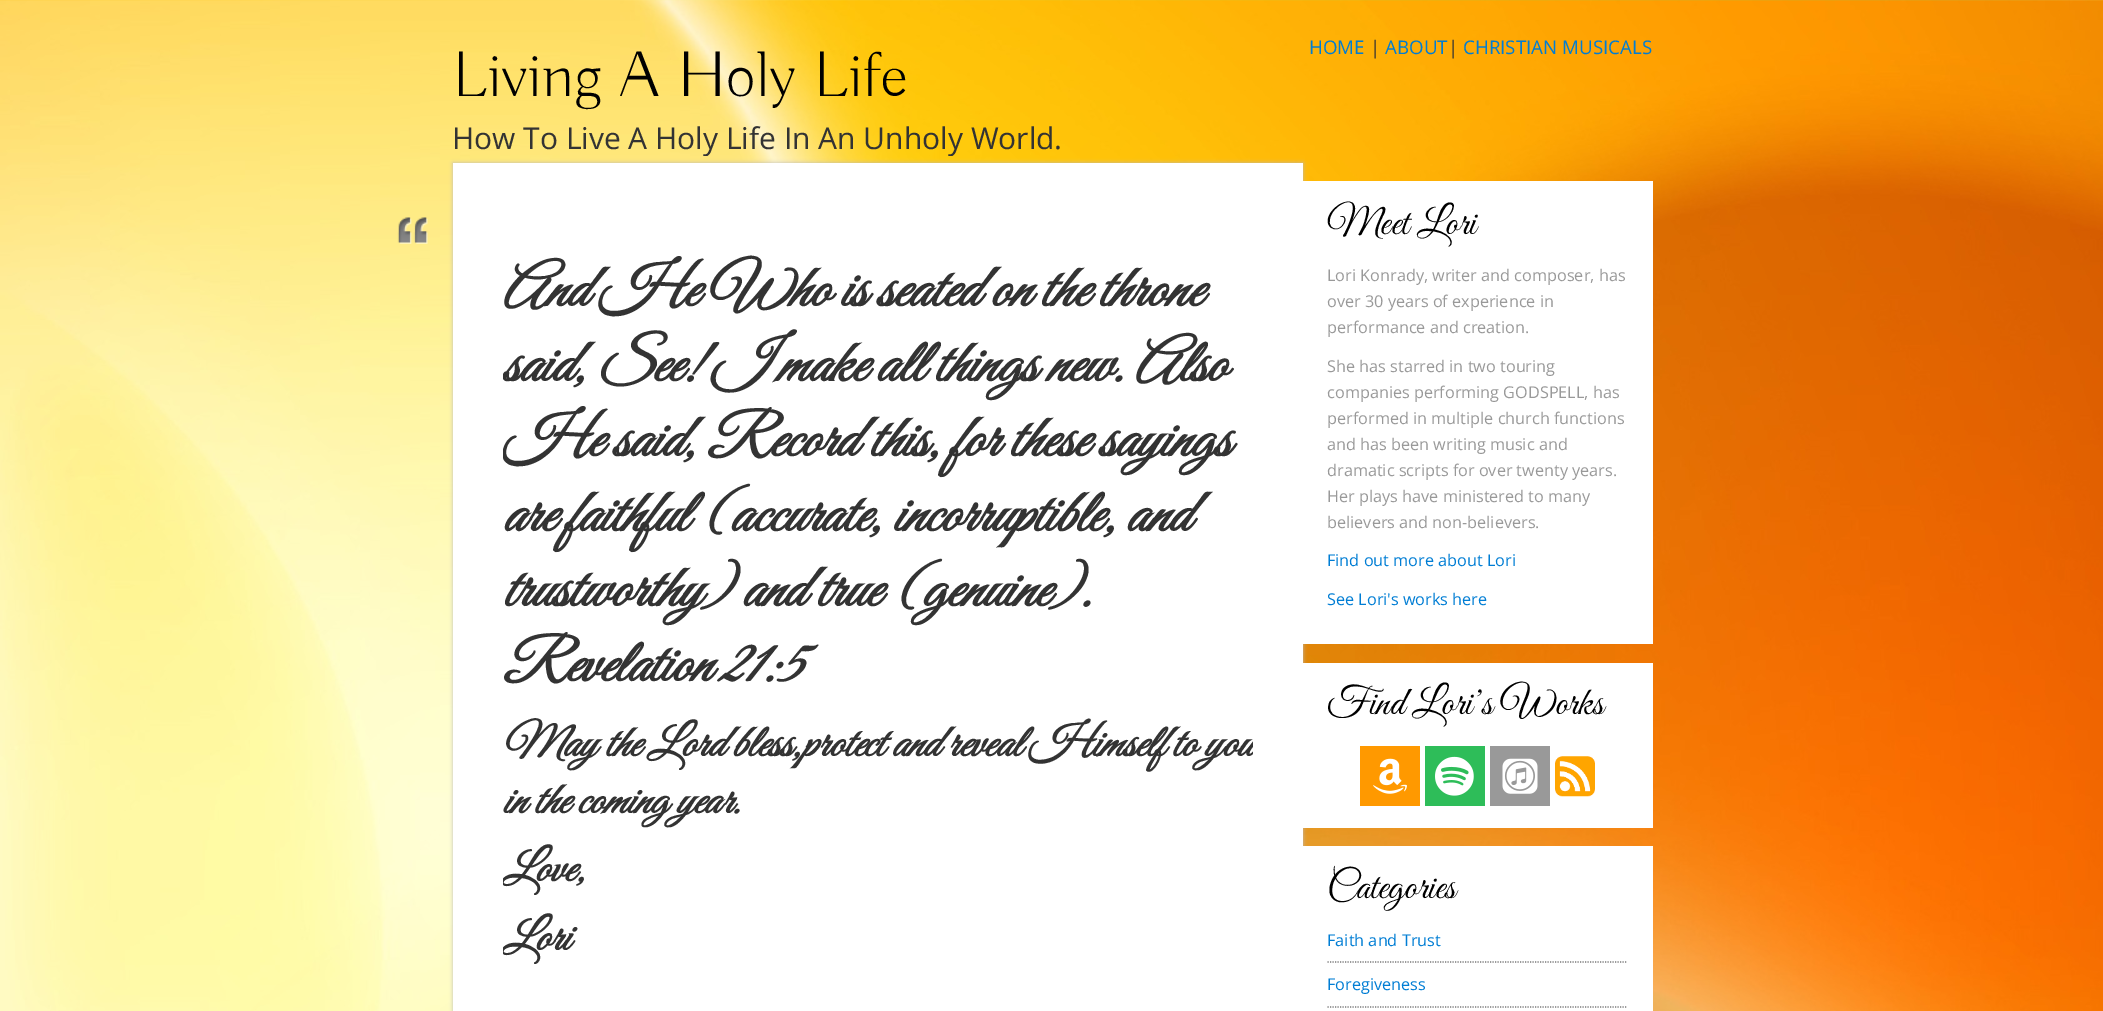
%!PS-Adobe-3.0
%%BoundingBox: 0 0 2103 1011
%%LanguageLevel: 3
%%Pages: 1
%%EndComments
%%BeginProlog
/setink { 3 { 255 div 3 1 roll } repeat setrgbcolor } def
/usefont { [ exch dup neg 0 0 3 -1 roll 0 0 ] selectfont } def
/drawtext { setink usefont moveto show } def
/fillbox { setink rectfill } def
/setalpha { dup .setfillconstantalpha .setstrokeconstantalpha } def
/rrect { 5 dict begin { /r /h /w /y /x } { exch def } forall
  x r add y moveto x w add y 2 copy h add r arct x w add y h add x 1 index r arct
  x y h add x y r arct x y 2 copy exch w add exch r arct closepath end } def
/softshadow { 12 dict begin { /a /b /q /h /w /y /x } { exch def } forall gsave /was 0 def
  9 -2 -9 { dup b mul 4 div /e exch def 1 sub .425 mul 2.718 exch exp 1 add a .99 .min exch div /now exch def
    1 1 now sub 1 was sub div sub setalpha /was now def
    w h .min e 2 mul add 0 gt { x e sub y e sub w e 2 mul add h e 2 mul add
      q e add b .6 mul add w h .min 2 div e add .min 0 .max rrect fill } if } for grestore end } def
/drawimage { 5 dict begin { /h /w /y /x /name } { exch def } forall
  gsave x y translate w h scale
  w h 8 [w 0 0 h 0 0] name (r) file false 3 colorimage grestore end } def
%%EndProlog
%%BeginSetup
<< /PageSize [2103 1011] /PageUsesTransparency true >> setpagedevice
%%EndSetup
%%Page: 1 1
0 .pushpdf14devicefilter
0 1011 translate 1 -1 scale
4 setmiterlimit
0 0 2103 1011 255 255 255 fillbox
(assets/img1.rgb) 0 0 2103 1011 drawimage
(HOME) 1309 54 /OpenSans-Regular 18.75 0 125 212 drawtext
(|) 1370 54 /OpenSans-Regular 18.75 51 51 51 drawtext
(ABOUT) 1385 54 /OpenSans-Regular 18.75 0 125 212 drawtext
(|) 1448 54 /OpenSans-Regular 18.75 51 51 51 drawtext
(CHRISTIAN MUSICALS) 1463 54 /OpenSans-Regular 18.75 0 125 212 drawtext
(Living A Holy Life) 452 96 /Buda-Light 65 0 0 0 drawtext
gsave
453 0 625 156 rectclip
(How To Live A Holy Life In An Unholy World.) 452 149 /OpenSans-Regular 30 51 51 51 drawtext
grestore
187 187 187 setink
453 163 850 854 0 2 1 softshadow
453 163 850 848 255 255 255 fillbox
(assets/img2.rgb) 397 217 31 27 drawimage
(And He Who is seated on the throne) 502 306 /GreatVibes-BoldItalic 60 51 51 51 drawtext
gsave
503 194 750 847 rectclip
(said, See! I make all things new. Also) 502 381 /GreatVibes-BoldItalic 60 51 51 51 drawtext
502 456 moveto 0.5 0 32 (He said, Record this, for these sayings) widthshow
grestore
502 531 moveto 0.5 0 32 (are faithful \(accurate, incorruptible, and) widthshow
(trustworthy\) and true \(genuine\).) 502 606 /GreatVibes-BoldItalic 60 51 51 51 drawtext
(Revelation 21:5) 502 681 /GreatVibes-BoldItalic 60 51 51 51 drawtext
/GreatVibes-BoldItalic 45 usefont
502 756 moveto 0.5 0 32 (May the Lord bless,prote) widthshow
gsave
503 194 750 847 rectclip
(ct and reveal Himself to you) 862 756 /GreatVibes-BoldItalic 45 51 51 51 drawtext
grestore
(in the coming year.) 502 813 /GreatVibes-BoldItalic 45 51 51 51 drawtext
gsave
503 194 750 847 rectclip
(Love,) 502 881 /GreatVibes-BoldItalic 45 51 51 51 drawtext
(Lori) 502 950 /GreatVibes-BoldItalic 45 51 51 51 drawtext
grestore
1303 181 350 463 255 255 255 fillbox
/GreatVibes-Regular 40 usefont
0 0 0 setink
1327 234 moveto 1 0 32 (Meet Lori) widthshow
(Lori Konrady, writer and composer, has) 1327 281 /OpenSans-Regular 16.25 153 153 153 drawtext
(over 30 years of experience in) 1327 307 /OpenSans-Regular 16.25 153 153 153 drawtext
(performance and creation.) 1327 333 /OpenSans-Regular 16.25 153 153 153 drawtext
(She has starred in two touring) 1327 372 /OpenSans-Regular 16.25 153 153 153 drawtext
(companies performing GODSPELL, has) 1327 398 /OpenSans-Regular 16.25 153 153 153 drawtext
(performed in multiple church functions) 1327 424 /OpenSans-Regular 16.25 153 153 153 drawtext
(and has been writing music and) 1327 450 /OpenSans-Regular 16.25 153 153 153 drawtext
(dramatic scripts for over twenty years.) 1327 476 /OpenSans-Regular 16.25 153 153 153 drawtext
(Her plays have ministered to many) 1327 502 /OpenSans-Regular 16.25 153 153 153 drawtext
(believers and non-believers.) 1327 528 /OpenSans-Regular 16.25 153 153 153 drawtext
(Find out more about Lori) 1327 566 /OpenSans-Regular 16.25 0 125 212 drawtext
(See Lori's works here) 1327 605 /OpenSans-Regular 16.25 0 125 212 drawtext
1303 663 350 165 255 255 255 fillbox
/GreatVibes-Regular 40 usefont
0 0 0 setink
1327 714 moveto 1 0 32 (Find Lori’s Works) widthshow
1360 746 60 60 255 153 0 fillbox
(assets/img3.rgb) 1373 758 34 36 drawimage
1425 746 60 60 46 189 89 fillbox
(assets/img4.rgb) 1435 756 39 40 drawimage
1490 746 60 60 153 153 153 fillbox
(assets/img5.rgb) 1502 758 36 36 drawimage
(assets/img6.rgb) 1555 756 40 41 drawimage
1303 846 350 165 255 255 255 fillbox
(Categories) 1327 898 /GreatVibes-Regular 40 0 0 0 drawtext
119 119 119 setink
1.2 setlinewidth
[1.25 1.25] 0 setdash
1327.5 962 moveto 1627.5 962 lineto stroke
(Faith and Trust) 1327 946 /OpenSans-Regular 16.25 0 125 212 drawtext
119 119 119 setink
1327.5 1007 moveto 1627.5 1007 lineto stroke
(Foregiveness) 1327 990 /OpenSans-Regular 16.25 0 125 212 drawtext
.poppdf14devicefilter showpage
%%EOF
